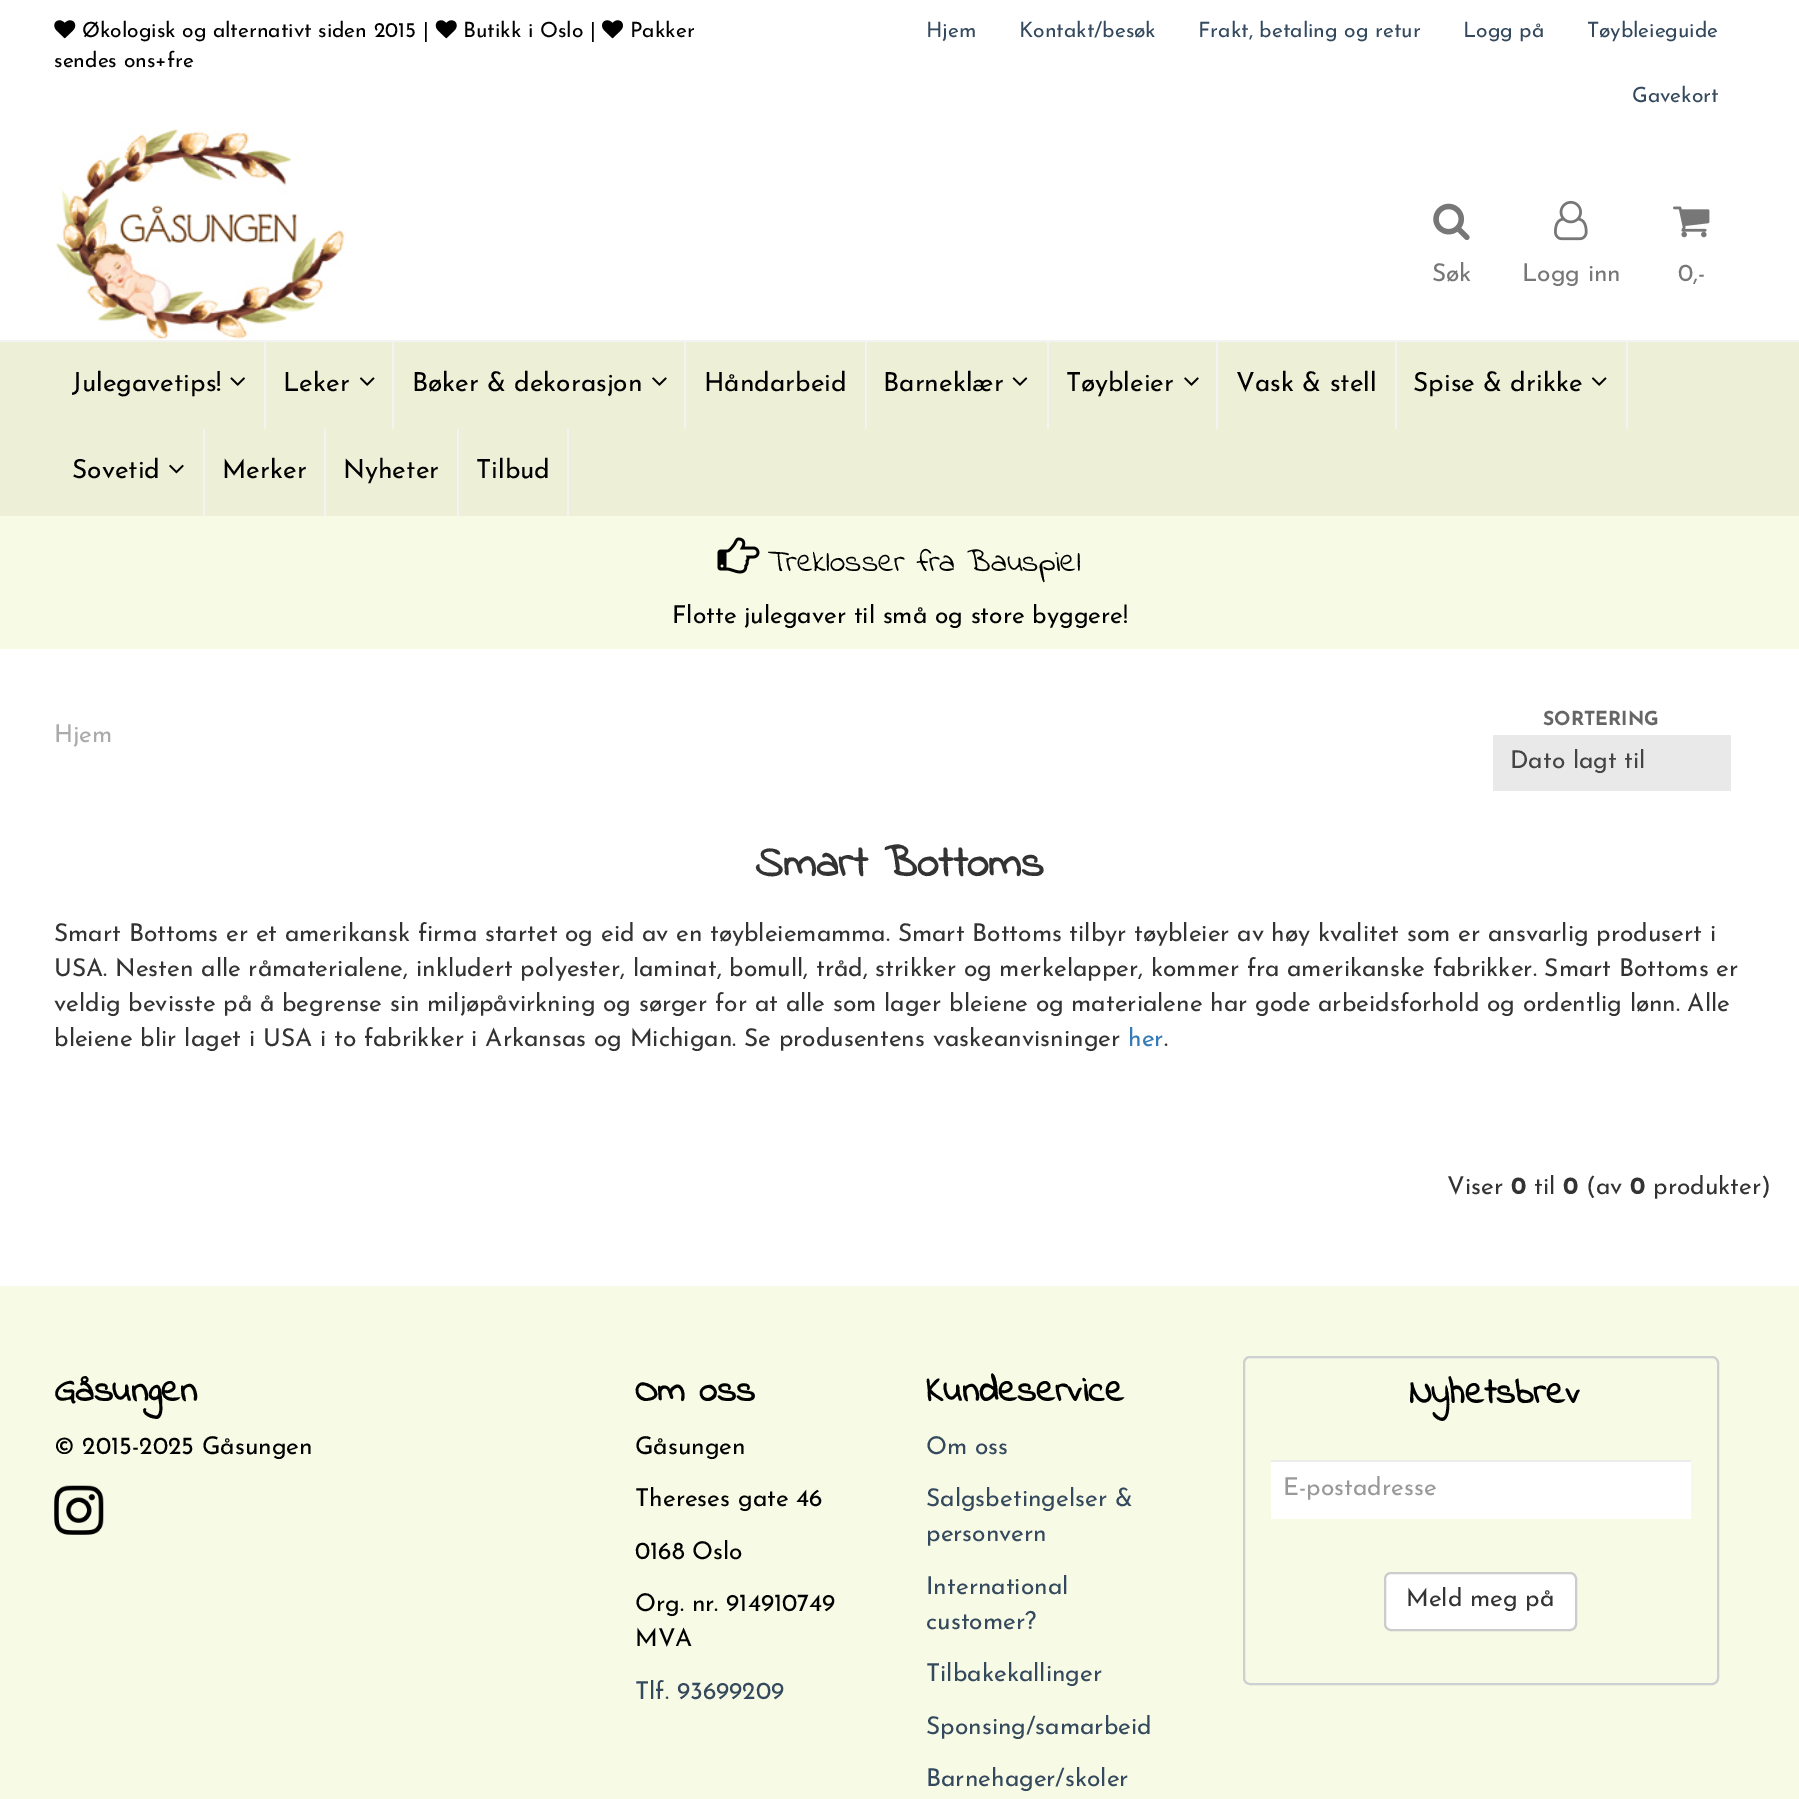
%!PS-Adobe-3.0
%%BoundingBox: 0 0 1799 1799
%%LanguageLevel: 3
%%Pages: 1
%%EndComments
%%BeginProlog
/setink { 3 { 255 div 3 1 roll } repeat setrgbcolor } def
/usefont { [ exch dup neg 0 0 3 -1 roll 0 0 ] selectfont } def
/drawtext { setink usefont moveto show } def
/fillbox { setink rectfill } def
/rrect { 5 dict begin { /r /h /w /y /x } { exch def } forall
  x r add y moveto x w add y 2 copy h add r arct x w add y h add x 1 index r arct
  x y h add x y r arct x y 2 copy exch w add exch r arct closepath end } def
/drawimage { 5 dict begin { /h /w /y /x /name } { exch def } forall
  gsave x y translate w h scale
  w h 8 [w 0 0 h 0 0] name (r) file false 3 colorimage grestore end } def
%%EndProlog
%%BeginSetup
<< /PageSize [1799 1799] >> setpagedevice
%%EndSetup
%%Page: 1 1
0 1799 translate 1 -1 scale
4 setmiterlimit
0 0 1799 1799 255 255 255 fillbox
(assets/img1.rgb) 54 20 22 19 drawimage
(Økologisk og alternativt siden 2015 |) 82 37 /JosefinSans-Regular 21 0 0 0 drawtext
(assets/img2.rgb) 435 20 22 19 drawimage
(Butikk i Oslo |) 463 37 /JosefinSans-Regular 21 0 0 0 drawtext
(assets/img3.rgb) 602 20 21 19 drawimage
(Pakker) 630 37 /JosefinSans-Regular 21 0 0 0 drawtext
(sendes ons+fre) 54 67 /JosefinSans-Regular 21 0 0 0 drawtext
(Hjem) 926 37 /JosefinSans-Regular 21 52 73 94 drawtext
(Kontakt/besøk) 1019 37 /JosefinSans-Regular 21 52 73 94 drawtext
(Frakt, betaling og retur) 1198 37 /JosefinSans-Regular 21 52 73 94 drawtext
(Logg på) 1463 37 /JosefinSans-Regular 21 52 73 94 drawtext
(Tøybleieguide) 1587 37 /JosefinSans-Regular 21 52 73 94 drawtext
(Gavekort) 1632 102 /JosefinSans-Regular 21 52 73 94 drawtext
(assets/img4.rgb) 56 129 289 210 drawimage
(assets/img5.rgb) 1433 203 37 38 drawimage
(Søk) 1432 281 /JosefinSans-Regular 24.5 119 119 119 drawtext
(assets/img6.rgb) 1554 200 34 41 drawimage
(Logg inn) 1522 281 /JosefinSans-Regular 24.5 119 119 119 drawtext
(assets/img7.rgb) 1673 206 37 32 drawimage
(0,-) 1678 281 /JosefinSans-Regular 24.5 119 119 119 drawtext
0 342 1799 174 237 240 215 fillbox
0 340 1799 2 243 243 243 fillbox
264 341 2 88 243 243 243 fillbox
(Julegavetips!) 72 391 /JosefinSans-Regular 26.25 0 0 0 drawtext
(assets/img8.rgb) 230 377 15 9 drawimage
392 341 2 88 243 243 243 fillbox
(Leker) 283 391 /JosefinSans-Regular 26.25 0 0 0 drawtext
(assets/img9.rgb) 359 377 16 9 drawimage
684 341 2 88 243 243 243 fillbox
(Bøker & dekorasjon) 412 391 /JosefinSans-Regular 26.25 0 0 0 drawtext
(assets/img10.rgb) 652 377 15 9 drawimage
865 341 2 88 243 243 243 fillbox
(Håndarbeid) 704 391 /JosefinSans-Regular 26.25 0 0 0 drawtext
1047 341 2 88 243 243 243 fillbox
(Barneklær) 883 391 /JosefinSans-Regular 26.25 0 0 0 drawtext
(assets/img11.rgb) 1012 377 16 9 drawimage
1216 341 2 88 243 243 243 fillbox
(Tøybleier) 1066 391 /JosefinSans-Regular 26.25 0 0 0 drawtext
(assets/img10.rgb) 1184 377 15 9 drawimage
1395 341 2 88 243 243 243 fillbox
(Vask & stell) 1236 391 /JosefinSans-Regular 26.25 0 0 0 drawtext
1626 341 2 88 243 243 243 fillbox
(Spise & drikke) 1413 391 /JosefinSans-Regular 26.25 0 0 0 drawtext
(assets/img9.rgb) 1591 377 16 9 drawimage
203 429 2 87 243 243 243 fillbox
(Sovetid) 72 478 /JosefinSans-Regular 26.25 0 0 0 drawtext
(assets/img12.rgb) 169 464 15 10 drawimage
324 429 2 87 243 243 243 fillbox
(Merker) 222 478 /JosefinSans-Regular 26.25 0 0 0 drawtext
457 429 2 87 243 243 243 fillbox
(Nyheter) 343 478 /JosefinSans-Regular 26.25 0 0 0 drawtext
567 429 2 87 243 243 243 fillbox
(Tilbud) 476 478 /JosefinSans-Regular 26.25 0 0 0 drawtext
0 516 1799 133 247 250 228 fillbox
(assets/img13.rgb) 717 537 43 37 drawimage
(Treklosser fra Bauspiel) 768 571 /IndieFlower-Regular 31.5 0 0 0 drawtext
(Flotte julegaver til små og store byggere!) 672 623 /JosefinSans-Regular 24.5 0 0 0 drawtext
(Hjem) 54 742 /JosefinSans-Regular 24.5 170 170 170 drawtext
(SORTERING) 1543 725 /JosefinSans-Bold 19.25 102 102 102 drawtext
1493 735 238 56 233 233 233 fillbox
(Dato lagt til) 1510 768 /JosefinSans-Regular 24.5 68 68 68 drawtext
(Smart Bottoms) 755 876 /IndieFlower-Bold 44 51 51 51 drawtext
(Smart Bottoms er et amerikansk firma startet og eid av en tøybleiemamma. Smart Bottoms tilbyr tøybleier av høy kvalitet som er ansvarlig produsert i) 54 941 /JosefinSans-Regular 24.5 51 51 51 drawtext
(USA. Nesten alle råmaterialene, inkludert polyester, laminat, bomull, tråd, strikker og merkelapper, kommer fra amerikanske fabrikker. Smart Bottoms er) 54 976 /JosefinSans-Regular 24.5 51 51 51 drawtext
(veldig bevisste på å begrense sin miljøpåvirkning og sørger for at alle som lager bleiene og materialene har gode arbeidsforhold og ordentlig lønn. Alle) 54 1011 /JosefinSans-Regular 24.5 51 51 51 drawtext
(bleiene blir laget i USA i to fabrikker i Arkansas og Michigan. Se produsentens vaskeanvisninger) 54 1046 /JosefinSans-Regular 24.5 51 51 51 drawtext
(her) 1128 1046 /JosefinSans-Regular 24.5 51 122 183 drawtext
(.) 1164 1046 /JosefinSans-Regular 24.5 51 51 51 drawtext
(Viser) 1447 1194 /JosefinSans-Regular 24.5 51 51 51 drawtext
(0) 1511 1194 /JosefinSans-Bold 24.5 51 51 51 drawtext
(til) 1534 1194 /JosefinSans-Regular 24.5 51 51 51 drawtext
(0) 1563 1194 /JosefinSans-Bold 24.5 51 51 51 drawtext
(\(av) 1586 1194 /JosefinSans-Regular 24.5 51 51 51 drawtext
(0) 1630 1194 /JosefinSans-Bold 24.5 51 51 51 drawtext
(produkter\)) 1653 1194 /JosefinSans-Regular 24.5 51 51 51 drawtext
0 1286 1799 513 247 250 228 fillbox
(Gåsungen) 54 1401 /IndieFlower-Bold 36.75 0 0 0 drawtext
(© 2015-2025 Gåsungen) 54 1454 /JosefinSans-Regular 24.5 0 0 0 drawtext
(assets/img14.rgb) 54 1485 50 50 drawimage
(Om oss) 635 1401 /IndieFlower-Bold 36.75 0 0 0 drawtext
(Gåsungen) 635 1454 /JosefinSans-Regular 24.5 0 0 0 drawtext
(Thereses gate 46) 635 1506 /JosefinSans-Regular 24.5 0 0 0 drawtext
(0168 Oslo) 635 1559 /JosefinSans-Regular 24.5 0 0 0 drawtext
(Org. nr. 914910749) 635 1611 /JosefinSans-Regular 24.5 0 0 0 drawtext
(MVA) 635 1646 /JosefinSans-Regular 24.5 0 0 0 drawtext
(Tlf. 93699209) 635 1699 /JosefinSans-Regular 24.5 52 73 94 drawtext
(Kundeservice) 926 1401 /IndieFlower-Bold 36.75 0 0 0 drawtext
(Om oss) 926 1454 /JosefinSans-Regular 24.5 52 73 94 drawtext
(Salgsbetingelser &) 926 1506 /JosefinSans-Regular 24.5 52 73 94 drawtext
(personvern) 926 1541 /JosefinSans-Regular 24.5 52 73 94 drawtext
(International) 926 1594 /JosefinSans-Regular 24.5 52 73 94 drawtext
(customer?) 926 1629 /JosefinSans-Regular 24.5 52 73 94 drawtext
(Tilbakekallinger) 926 1681 /JosefinSans-Regular 24.5 52 73 94 drawtext
(Sponsing/samarbeid) 926 1734 /JosefinSans-Regular 24.5 52 73 94 drawtext
(Barnehager/skoler) 926 1786 /JosefinSans-Regular 24.5 52 73 94 drawtext
205 208 209 setink
2 setlinewidth
1244 1357 474 327 6 rrect stroke
(Nyhetsbrev) 1409 1403 /IndieFlower-Bold 36.75 0 0 0 drawtext
1271 1462 420 57 255 255 255 fillbox
1271 1460 420 2 236 236 236 fillbox
(E-postadresse) 1283 1495 /JosefinSans-Regular 24.5 153 153 153 drawtext
255 255 255 setink
1385 1573 191 57 6 rrect gsave fill grestore
204 204 204 setink
stroke
(Meld meg på) 1406 1606 /JosefinSans-Regular 24.5 51 51 51 drawtext
showpage
%%EOF
